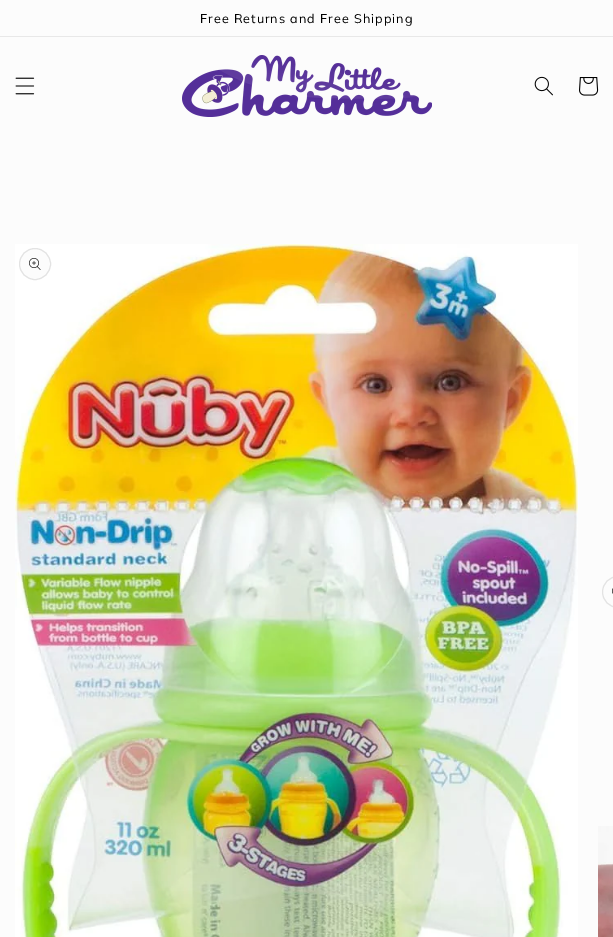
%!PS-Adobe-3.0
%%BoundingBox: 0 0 613 937
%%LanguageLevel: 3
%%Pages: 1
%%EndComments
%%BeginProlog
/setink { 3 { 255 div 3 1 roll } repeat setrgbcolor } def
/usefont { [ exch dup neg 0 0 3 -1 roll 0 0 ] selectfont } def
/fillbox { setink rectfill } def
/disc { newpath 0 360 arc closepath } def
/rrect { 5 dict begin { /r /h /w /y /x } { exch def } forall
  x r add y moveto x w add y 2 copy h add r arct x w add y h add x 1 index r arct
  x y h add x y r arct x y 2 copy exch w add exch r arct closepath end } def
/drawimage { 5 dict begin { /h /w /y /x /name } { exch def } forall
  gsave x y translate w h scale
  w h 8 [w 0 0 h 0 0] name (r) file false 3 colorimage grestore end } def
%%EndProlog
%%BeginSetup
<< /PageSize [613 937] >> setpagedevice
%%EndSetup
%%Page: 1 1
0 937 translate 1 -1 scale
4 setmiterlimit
0 0 613 937 252 252 252 fillbox
0 36 613 1 232 232 232 fillbox
/Muli-Regular 12.6 usefont
0 0 0 setink
200 23 moveto 1 0 (Free Returns and Free Shipping) ashow
(assets/img1.rgb) 15 77 20 18 drawimage
(assets/img2.rgb) 182 55 250 62 drawimage
(assets/img3.rgb) 534 76 19 20 drawimage
(assets/img4.rgb) 579 77 20 19 drawimage
(assets/img5.rgb) 15 244 563 693 drawimage
252 252 252 setink
35 264 15.5 disc gsave fill grestore
227 227 227 setink
stroke
(assets/img6.rgb) 29 258 12 12 drawimage
602.5 576.5 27 31 15.5 rrect stroke
(assets/img7.rgb) 612 588 1 6 drawimage
(assets/img8.rgb) 598 826 15 111 drawimage
showpage
%%EOF
